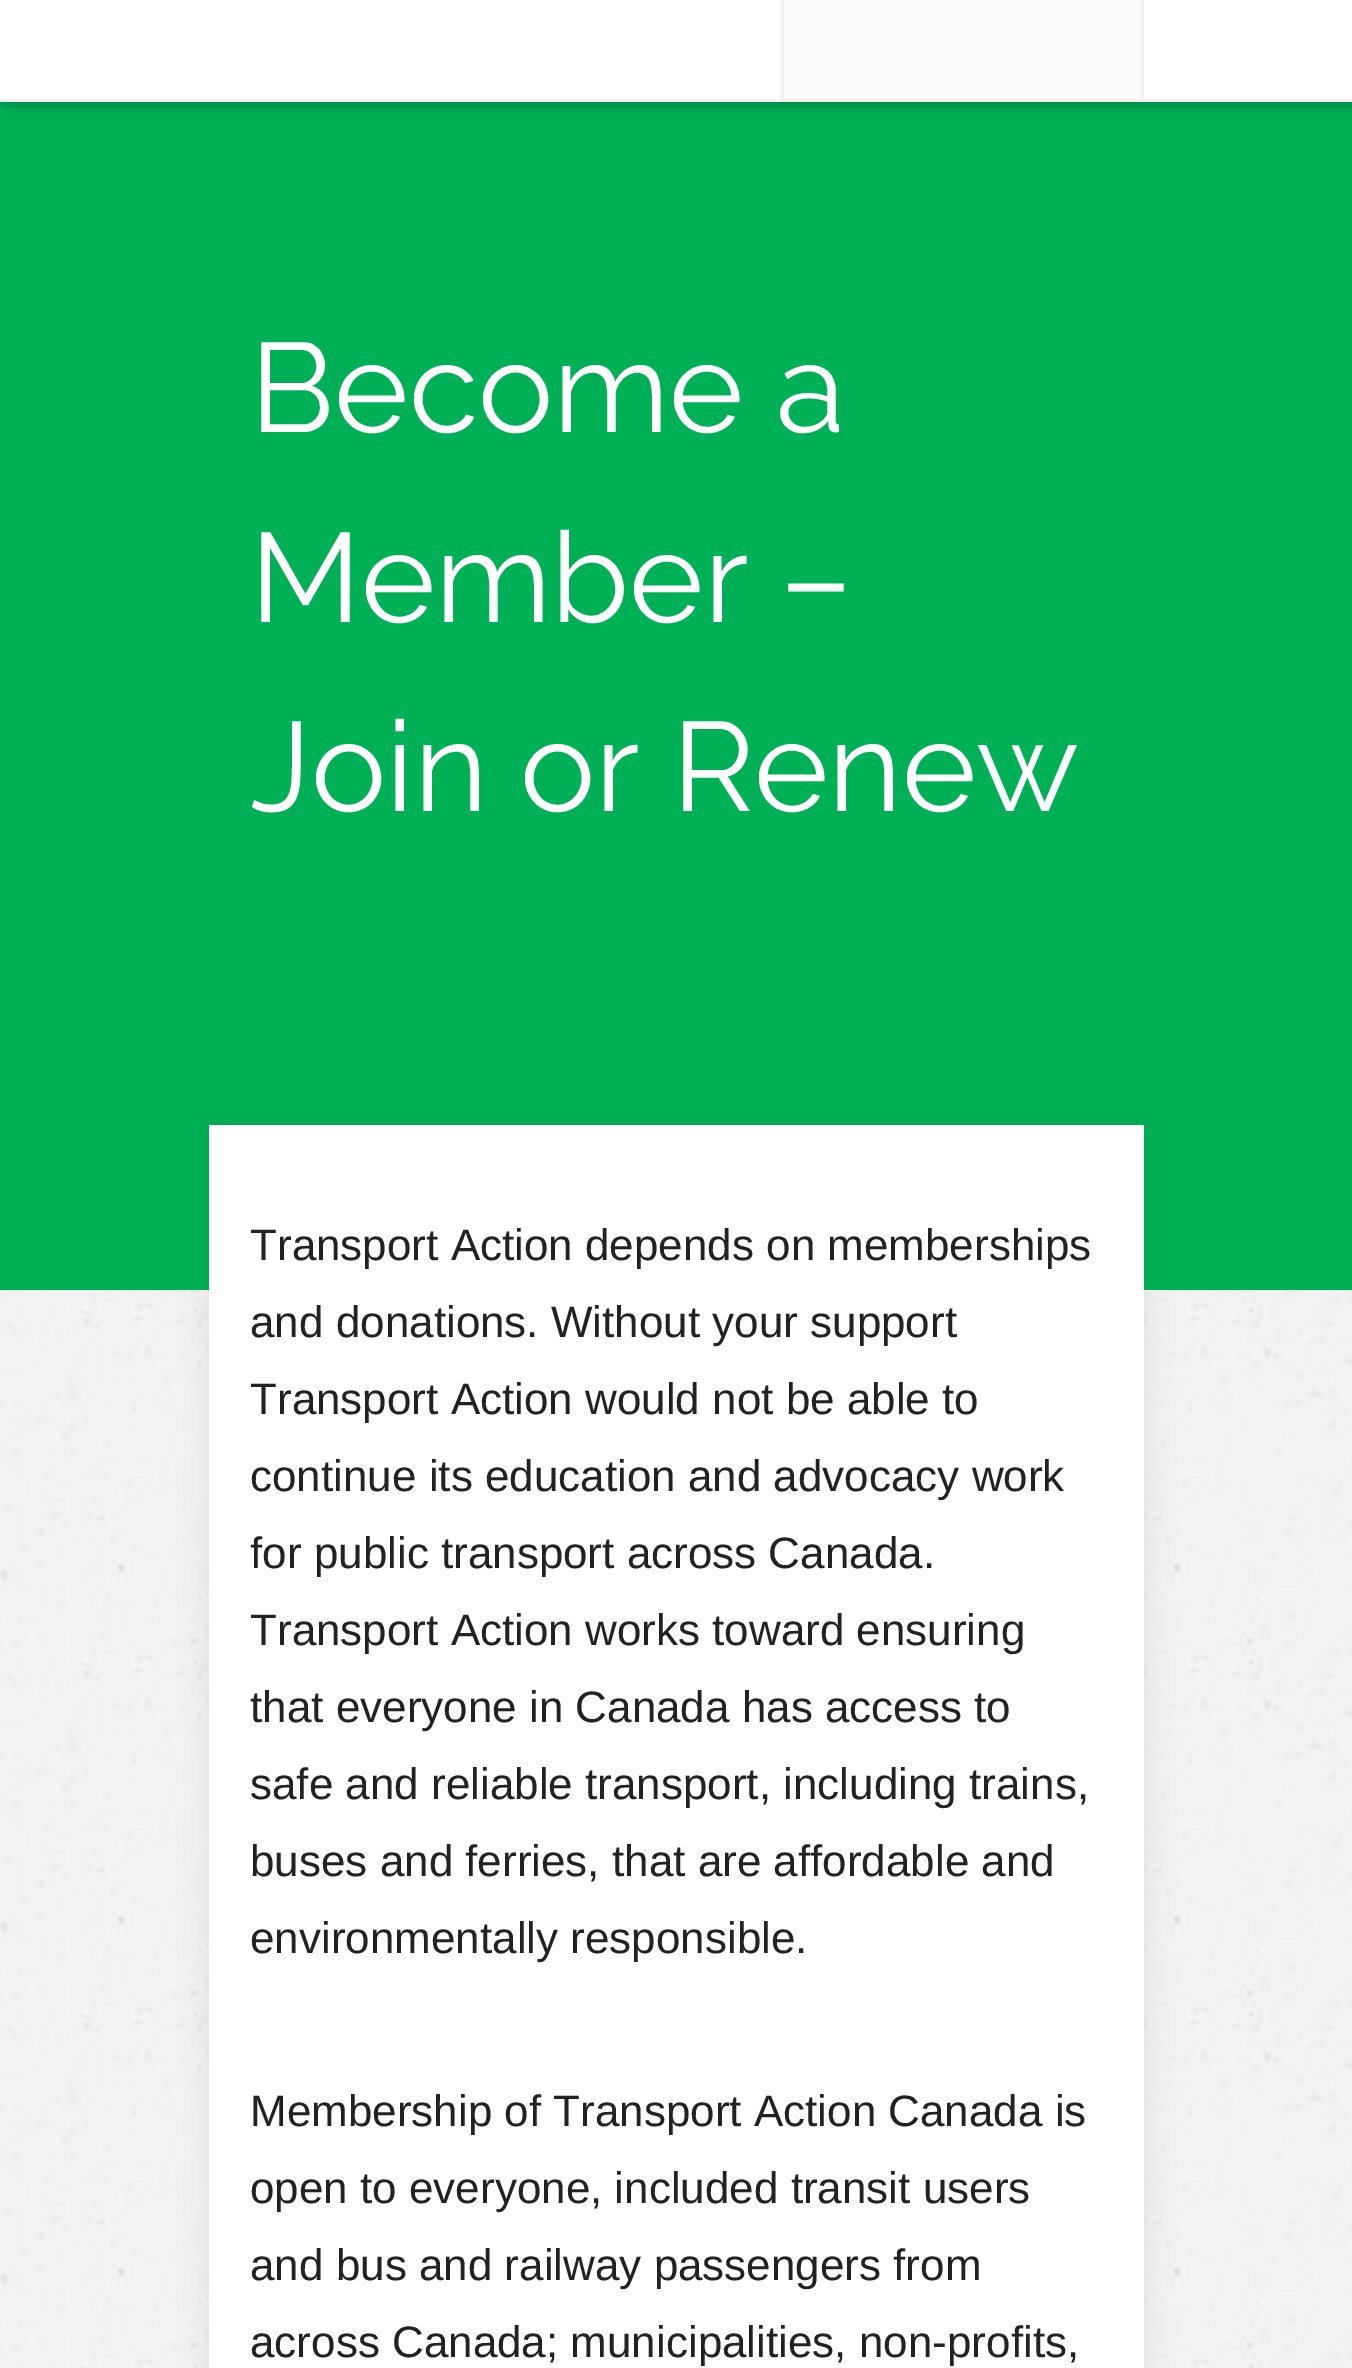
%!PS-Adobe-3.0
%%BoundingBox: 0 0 1352 2368
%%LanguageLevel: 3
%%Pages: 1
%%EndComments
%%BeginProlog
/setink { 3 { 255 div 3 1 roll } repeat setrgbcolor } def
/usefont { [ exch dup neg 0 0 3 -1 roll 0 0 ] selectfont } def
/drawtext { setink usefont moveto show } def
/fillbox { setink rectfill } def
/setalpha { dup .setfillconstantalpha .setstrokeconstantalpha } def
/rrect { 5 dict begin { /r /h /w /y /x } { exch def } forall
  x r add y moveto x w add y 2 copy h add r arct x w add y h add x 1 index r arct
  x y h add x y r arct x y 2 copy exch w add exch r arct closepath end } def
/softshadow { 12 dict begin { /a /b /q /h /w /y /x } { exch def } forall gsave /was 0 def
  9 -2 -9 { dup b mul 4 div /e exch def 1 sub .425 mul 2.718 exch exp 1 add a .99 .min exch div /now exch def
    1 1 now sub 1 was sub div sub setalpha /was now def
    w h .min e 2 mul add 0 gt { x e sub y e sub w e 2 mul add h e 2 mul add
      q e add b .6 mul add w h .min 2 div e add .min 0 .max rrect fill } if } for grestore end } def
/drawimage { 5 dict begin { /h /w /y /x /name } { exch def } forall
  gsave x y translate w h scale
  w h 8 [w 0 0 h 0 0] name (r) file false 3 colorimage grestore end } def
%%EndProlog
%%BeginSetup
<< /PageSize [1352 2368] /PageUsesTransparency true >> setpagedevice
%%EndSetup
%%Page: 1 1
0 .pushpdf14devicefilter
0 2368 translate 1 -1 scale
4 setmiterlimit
0 0 1352 2368 255 255 255 fillbox
(assets/img1.rgb) 0 1290 1352 1078 drawimage
0 102 1352 1188 0 176 86 fillbox
0 0 0 setink
8 -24 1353 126 0 8 0.37 softshadow
0 0 1352 99 255 255 255 fillbox
0 99 1352 3 241 241 241 fillbox
784 0 357 99 251 251 251 fillbox
1141 0 3 99 240 240 240 fillbox
781 0 3 99 240 240 240 fillbox
(Become a) 250 432 /Raleway-Regular 126.5 255 255 255 drawtext
(Member –) 250 622 /Raleway-Regular 126.5 255 255 255 drawtext
(Join or Renew) 250 811 /Raleway-Regular 126.5 255 255 255 drawtext
50 50 50 setink
209 1125 935 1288 0 15 0.11 softshadow
209 1125 935 1243 255 255 255 fillbox
(Transport Action depends on memberships) 250 1260 /LiberationSans-Regular 44 34 34 34 drawtext
(and donations. Without your support) 250 1337 /LiberationSans-Regular 44 34 34 34 drawtext
(Transport Action would not be able to) 250 1414 /LiberationSans-Regular 44 34 34 34 drawtext
(continue its education and advocacy work) 250 1491 /LiberationSans-Regular 44 34 34 34 drawtext
(for public transport across Canada.) 250 1568 /LiberationSans-Regular 44 34 34 34 drawtext
(Transport Action works toward ensuring) 250 1645 /LiberationSans-Regular 44 34 34 34 drawtext
(that everyone in Canada has access to) 250 1722 /LiberationSans-Regular 44 34 34 34 drawtext
(safe and reliable transport, including trains,) 250 1799 /LiberationSans-Regular 44 34 34 34 drawtext
(buses and ferries, that are affordable and) 250 1876 /LiberationSans-Regular 44 34 34 34 drawtext
(environmentally responsible.) 250 1953 /LiberationSans-Regular 44 34 34 34 drawtext
(Membership of Transport Action Canada is) 250 2126 /LiberationSans-Regular 44 34 34 34 drawtext
(open to everyone, included transit users) 250 2203 /LiberationSans-Regular 44 34 34 34 drawtext
(and bus and railway passengers from) 250 2280 /LiberationSans-Regular 44 34 34 34 drawtext
(across Canada; municipalities, non-profits,) 250 2357 /LiberationSans-Regular 44 34 34 34 drawtext
.poppdf14devicefilter showpage
%%EOF
